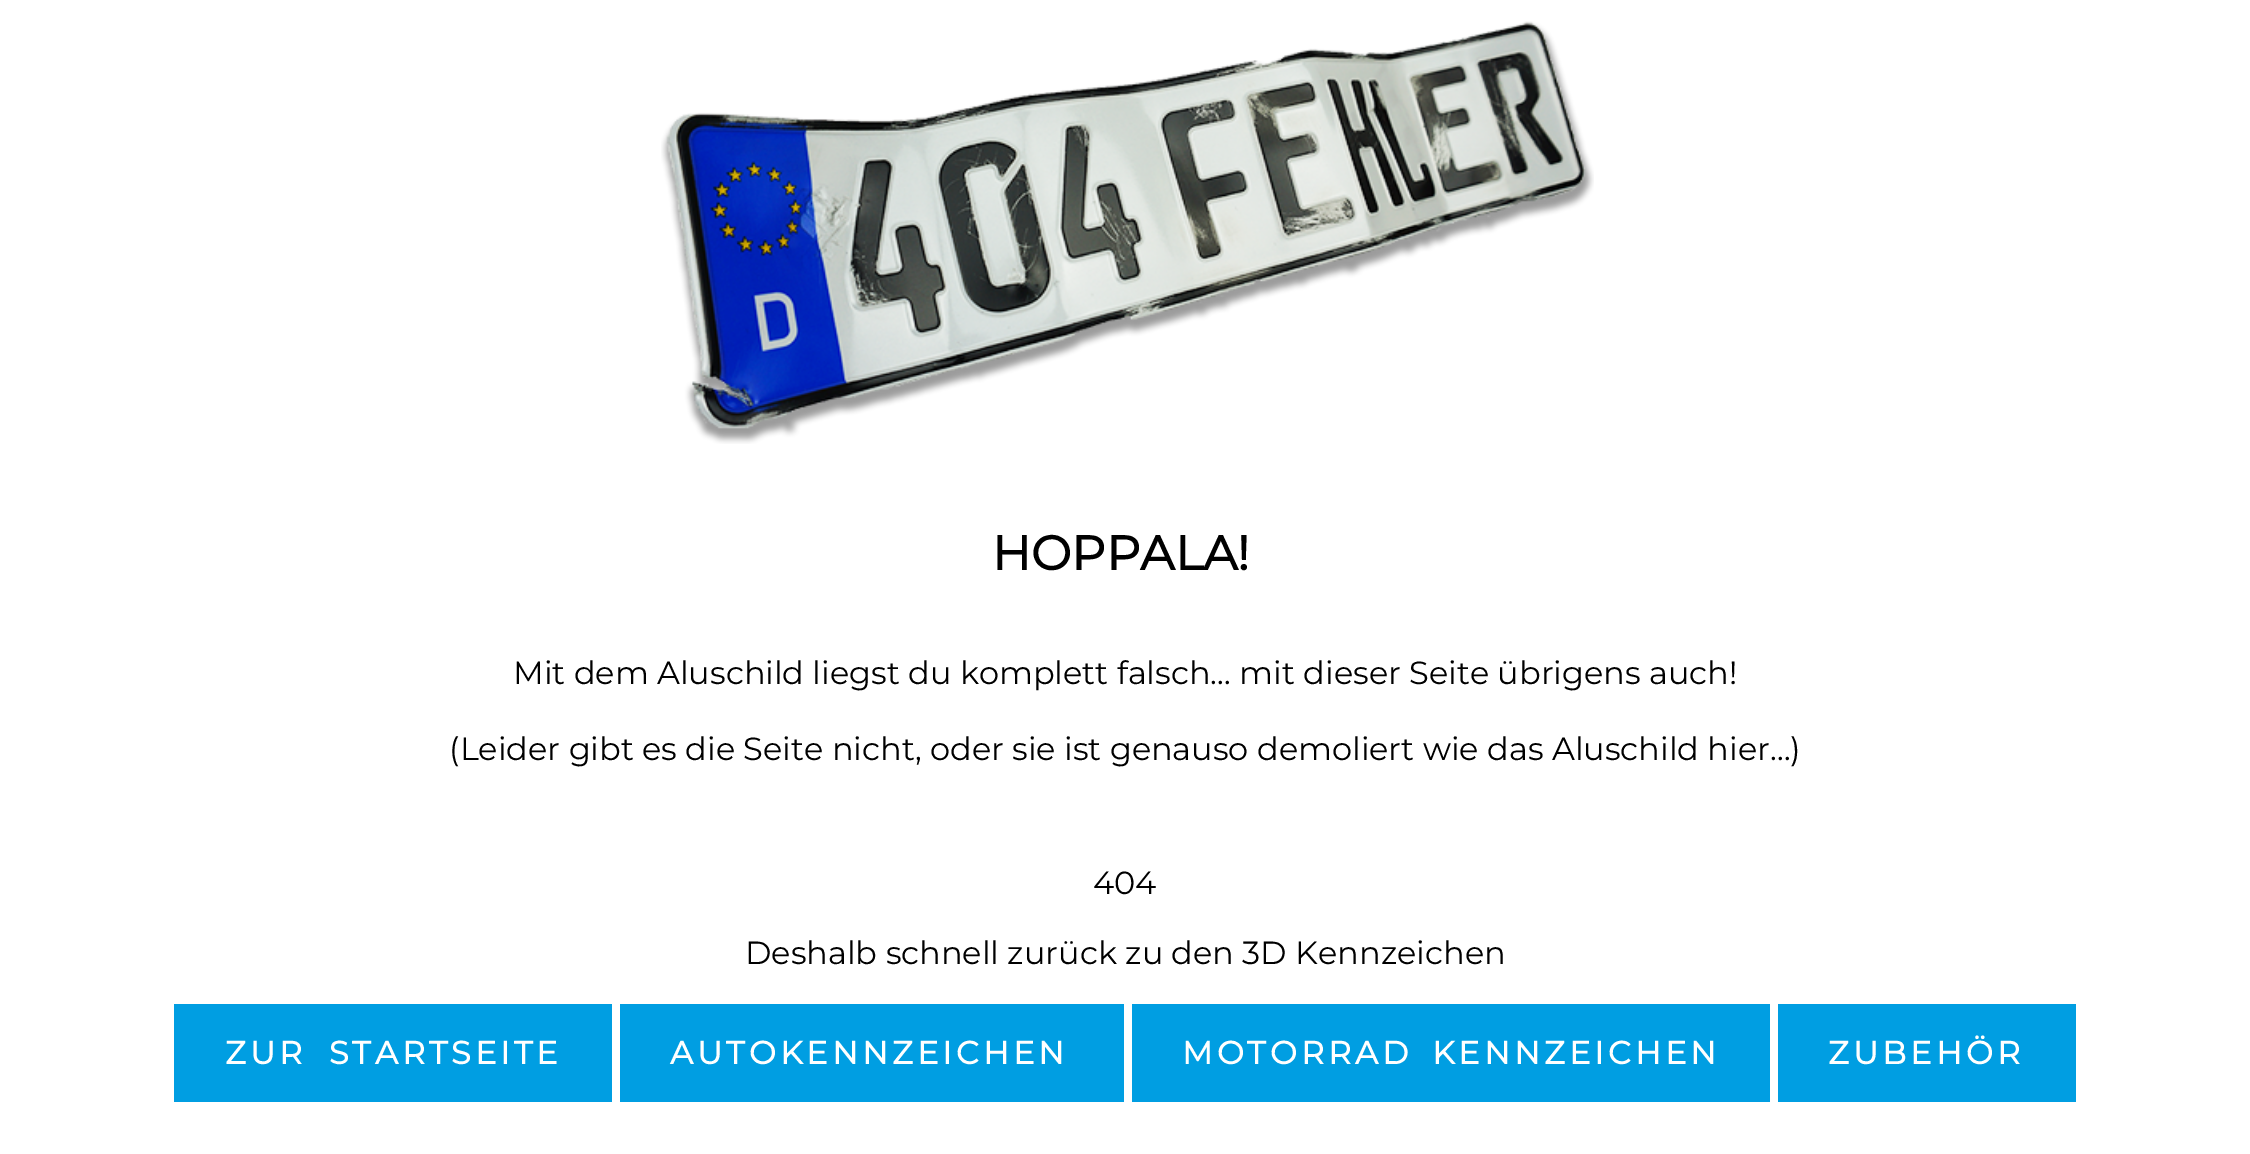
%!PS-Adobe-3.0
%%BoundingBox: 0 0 2250 1154
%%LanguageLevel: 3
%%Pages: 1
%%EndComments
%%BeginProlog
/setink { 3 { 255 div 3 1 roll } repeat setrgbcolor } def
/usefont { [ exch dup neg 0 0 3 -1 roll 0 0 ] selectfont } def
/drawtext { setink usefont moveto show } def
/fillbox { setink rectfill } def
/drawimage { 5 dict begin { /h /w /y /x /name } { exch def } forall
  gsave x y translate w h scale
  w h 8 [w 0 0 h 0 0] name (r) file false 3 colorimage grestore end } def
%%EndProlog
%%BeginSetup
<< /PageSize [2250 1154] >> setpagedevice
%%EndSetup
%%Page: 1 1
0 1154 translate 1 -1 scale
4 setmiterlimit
0 0 2250 1154 255 255 255 fillbox
(assets/img1.rgb) 661 21 933 423 drawimage
(HOPPALA!) 992 570 /Montserrat-Bold 48 0 0 0 drawtext
(Mit dem Aluschild liegst du komplett falsch… mit dieser Seite übrigens auch!) 513 684 /Montserrat-Regular 32 0 0 0 drawtext
(\(Leider gibt es die Seite nicht, oder sie ist genauso demoliert wie das Aluschild hier…\)) 449 760 /Montserrat-Regular 32 0 0 0 drawtext
(404) 1093 894 /Montserrat-Regular 32 0 0 0 drawtext
(Deshalb schnell zurück zu den 3D Kennzeichen) 745 964 /Montserrat-Regular 32 0 0 0 drawtext
174 1004 438 98 0 158 226 fillbox
/Montserrat-Bold 32 usefont
255 255 255 setink
225 1064 moveto 10 0 32 4 0 (ZUR STARTSEITE) awidthshow
620 1004 504 98 0 158 226 fillbox
255 255 255 setink
670 1064 moveto 4 0 (AUTOKENNZEICHEN) ashow
1132 1004 638 98 0 158 226 fillbox
255 255 255 setink
1182 1064 moveto 7 0 32 4 0 (MOTORRAD KENNZEICHEN) awidthshow
1778 1004 298 98 0 158 226 fillbox
255 255 255 setink
1828 1064 moveto 4 0 (ZUBEHÖR) ashow
showpage
%%EOF
